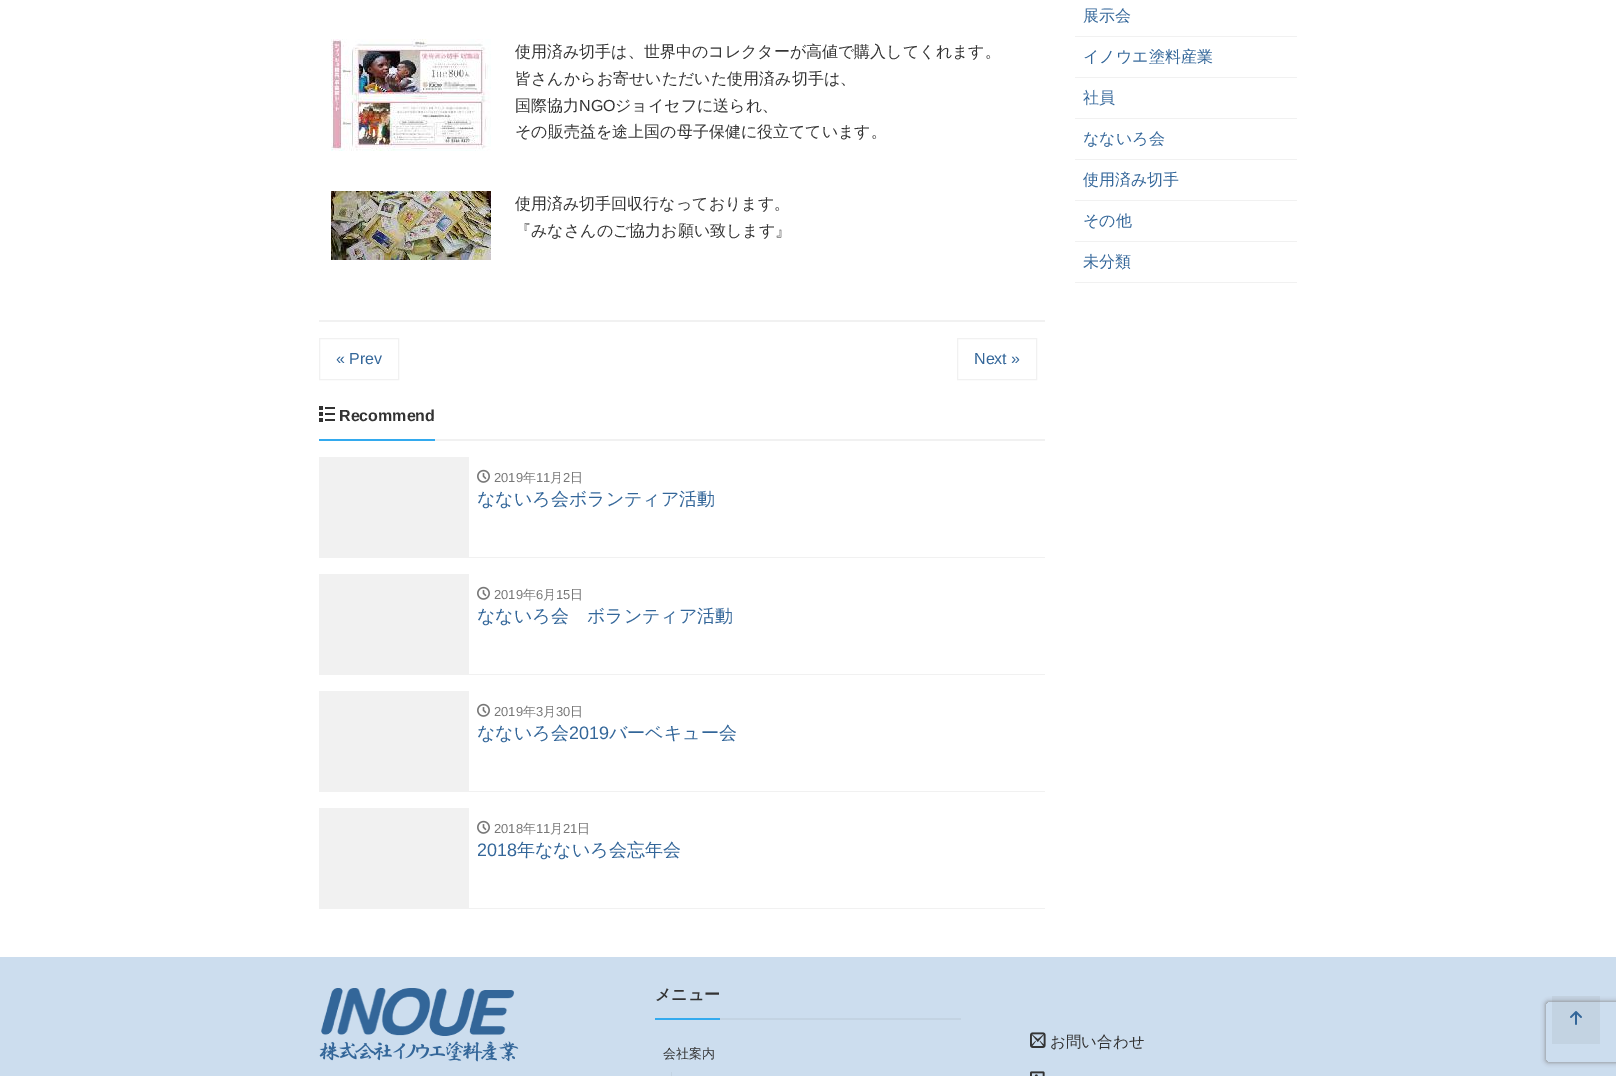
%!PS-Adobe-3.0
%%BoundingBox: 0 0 1616 1076
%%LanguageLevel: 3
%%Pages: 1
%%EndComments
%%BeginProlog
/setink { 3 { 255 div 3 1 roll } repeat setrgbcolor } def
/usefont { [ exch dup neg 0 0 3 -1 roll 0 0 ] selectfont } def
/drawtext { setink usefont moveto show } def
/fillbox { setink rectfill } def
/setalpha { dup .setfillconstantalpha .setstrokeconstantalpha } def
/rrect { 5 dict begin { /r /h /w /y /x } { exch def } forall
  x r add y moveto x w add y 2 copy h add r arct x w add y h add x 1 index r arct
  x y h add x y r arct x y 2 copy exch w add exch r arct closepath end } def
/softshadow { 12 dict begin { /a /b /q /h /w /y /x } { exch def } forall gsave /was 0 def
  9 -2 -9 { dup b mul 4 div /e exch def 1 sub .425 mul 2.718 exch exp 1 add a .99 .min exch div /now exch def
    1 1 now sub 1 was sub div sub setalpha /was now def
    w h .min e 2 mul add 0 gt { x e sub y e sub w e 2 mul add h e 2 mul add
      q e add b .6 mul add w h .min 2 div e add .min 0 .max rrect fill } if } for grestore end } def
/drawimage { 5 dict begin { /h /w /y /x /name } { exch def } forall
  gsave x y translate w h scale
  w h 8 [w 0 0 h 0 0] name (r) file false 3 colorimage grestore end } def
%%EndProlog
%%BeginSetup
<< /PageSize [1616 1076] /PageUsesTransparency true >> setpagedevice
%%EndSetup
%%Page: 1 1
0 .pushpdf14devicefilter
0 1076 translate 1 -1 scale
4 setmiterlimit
0 0 1616 1076 255 255 255 fillbox
319 320 726 2 241 241 241 fillbox
(assets/img1.rgb) 331 39 160 112 drawimage
(使用済み切手は、世界中のコレクターが高値で購入してくれます。) 515 57 /WenQuanYiZenHei-Medium 16 51 51 51 drawtext
(皆さんからお寄せいただいた使用済み切手は、) 515 84 /WenQuanYiZenHei-Medium 16 51 51 51 drawtext
(国際協力) 515 111 /WenQuanYiZenHei-Medium 16 51 51 51 drawtext
(NGO) 579 111 /LiberationSans-Regular 16 51 51 51 drawtext
(ジョイセフに送られ、) 615 111 /WenQuanYiZenHei-Medium 16 51 51 51 drawtext
(その販売益を途上国の母子保健に役立てています。) 515 137 /WenQuanYiZenHei-Medium 16 51 51 51 drawtext
(assets/img2.rgb) 331 191 160 69 drawimage
(使用済み切手回収行なっております。) 515 209 /WenQuanYiZenHei-Medium 16 51 51 51 drawtext
(『みなさんのご協力お願い致します』) 515 236 /WenQuanYiZenHei-Medium 16 51 51 51 drawtext
241 241 241 setink
319.5 338.5 79 41 rectstroke
(« Prev) 336 364 /LiberationSans-Regular 16 51 102 153 drawtext
241 241 241 setink
957.5 338.5 79 41 rectstroke
(Next ») 974 364 /LiberationSans-Regular 16 51 102 153 drawtext
435 439 610 2 241 241 241 fillbox
319 439 116 2 51 170 238 fillbox
(assets/img3.rgb) 319 406 16 16 drawimage
(Recommend) 339 421 /LiberationSans-Bold 16 51 51 51 drawtext
319 557 726 1 241 241 241 fillbox
319 457 150 100 241 241 241 fillbox
(assets/img4.rgb) 477 469 13 14 drawimage
(2019) 494 482 /LiberationSans-Regular 13 119 119 119 drawtext
(年) 523 482 /WenQuanYiZenHei-Medium 13 119 119 119 drawtext
(11) 536 482 /LiberationSans-Regular 13 119 119 119 drawtext
(月) 550 482 /WenQuanYiZenHei-Medium 13 119 119 119 drawtext
(2) 563 482 /LiberationSans-Regular 13 119 119 119 drawtext
(日) 570 482 /WenQuanYiZenHei-Medium 13 119 119 119 drawtext
(なないろ会ボランティア活動) 477 505 /WenQuanYiZenHei-Medium 18 51 102 153 drawtext
319 674 726 1 241 241 241 fillbox
319 574 150 100 241 241 241 fillbox
(assets/img4.rgb) 477 586 13 14 drawimage
(2019) 494 599 /LiberationSans-Regular 13 119 119 119 drawtext
(年) 523 599 /WenQuanYiZenHei-Medium 13 119 119 119 drawtext
(6) 536 599 /LiberationSans-Regular 13 119 119 119 drawtext
(月) 543 599 /WenQuanYiZenHei-Medium 13 119 119 119 drawtext
(15) 556 599 /LiberationSans-Regular 13 119 119 119 drawtext
(日) 570 599 /WenQuanYiZenHei-Medium 13 119 119 119 drawtext
(なないろ会　ボランティア活動) 477 622 /WenQuanYiZenHei-Medium 18 51 102 153 drawtext
319 791 726 1 241 241 241 fillbox
319 691 150 100 241 241 241 fillbox
(assets/img4.rgb) 477 703 13 14 drawimage
(2019) 494 716 /LiberationSans-Regular 13 119 119 119 drawtext
(年) 523 716 /WenQuanYiZenHei-Medium 13 119 119 119 drawtext
(3) 536 716 /LiberationSans-Regular 13 119 119 119 drawtext
(月) 543 716 /WenQuanYiZenHei-Medium 13 119 119 119 drawtext
(30) 556 716 /LiberationSans-Regular 13 119 119 119 drawtext
(日) 570 716 /WenQuanYiZenHei-Medium 13 119 119 119 drawtext
(なないろ会) 477 739 /WenQuanYiZenHei-Medium 18 51 102 153 drawtext
(2019) 569 739 /LiberationSans-Regular 18 51 102 153 drawtext
(バーベキュー会) 609 739 /WenQuanYiZenHei-Medium 18 51 102 153 drawtext
319 908 726 1 241 241 241 fillbox
319 808 150 100 241 241 241 fillbox
(assets/img4.rgb) 477 820 13 14 drawimage
(2018) 494 833 /LiberationSans-Regular 13 119 119 119 drawtext
(年) 523 833 /WenQuanYiZenHei-Medium 13 119 119 119 drawtext
(11) 536 833 /LiberationSans-Regular 13 119 119 119 drawtext
(月) 550 833 /WenQuanYiZenHei-Medium 13 119 119 119 drawtext
(21) 563 833 /LiberationSans-Regular 13 119 119 119 drawtext
(日) 577 833 /WenQuanYiZenHei-Medium 13 119 119 119 drawtext
(2018) 477 856 /LiberationSans-Regular 18 51 102 153 drawtext
(年なないろ会忘年会) 517 856 /WenQuanYiZenHei-Medium 18 51 102 153 drawtext
1075 36 222 1 241 241 241 fillbox
(展示会) 1083 21 /WenQuanYiZenHei-Medium 16 51 102 153 drawtext
1075 77 222 1 241 241 241 fillbox
(イノウエ塗料産業) 1083 62 /WenQuanYiZenHei-Medium 16 51 102 153 drawtext
1075 118 222 1 241 241 241 fillbox
(社員) 1083 103 /WenQuanYiZenHei-Medium 16 51 102 153 drawtext
1075 159 222 1 241 241 241 fillbox
(なないろ会) 1083 144 /WenQuanYiZenHei-Medium 16 51 102 153 drawtext
1075 200 222 1 241 241 241 fillbox
(使用済み切手) 1083 185 /WenQuanYiZenHei-Medium 16 51 102 153 drawtext
1075 241 222 1 241 241 241 fillbox
(その他) 1083 226 /WenQuanYiZenHei-Medium 16 51 102 153 drawtext
1075 282 222 1 241 241 241 fillbox
(未分類) 1083 267 /WenQuanYiZenHei-Medium 16 51 102 153 drawtext
0 957 1616 119 204 221 238 fillbox
(assets/img5.rgb) 319 988 200 74 drawimage
720 1018 241 2 195 211 226 fillbox
655 1018 65 2 51 170 238 fillbox
(メニュー) 655 1000 /WenQuanYiZenHei-Bold 16 51 51 51 drawtext
(会社案内) 663 1058 /WenQuanYiZenHei-Medium 13 51 51 51 drawtext
671 1072 1 4 195 211 226 fillbox
(assets/img6.rgb) 1030 1032 16 16 drawimage
(お問い合わせ) 1050 1047 /WenQuanYiZenHei-Medium 15.5 51 51 51 drawtext
(assets/img7.rgb) 1030 1071 15 5 drawimage
gsave
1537 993 moveto 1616 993 lineto 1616 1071 lineto 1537 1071 lineto closepath 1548 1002 moveto 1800 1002 lineto 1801 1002 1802 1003 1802 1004 curveto 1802 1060 lineto 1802 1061 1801 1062 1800 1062 curveto 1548 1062 lineto 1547 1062 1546 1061 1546 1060 curveto 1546 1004 lineto 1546 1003 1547 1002 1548 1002 curveto closepath eoclip newpath
128 128 128 setink
1546 1002 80 60 2 2.5 1 softshadow
grestore
0.1 setalpha
1552 996 48 48 119 119 119 fillbox
1 setalpha
(assets/img8.rgb) 1570 1011 12 14 drawimage
.poppdf14devicefilter showpage
%%EOF
